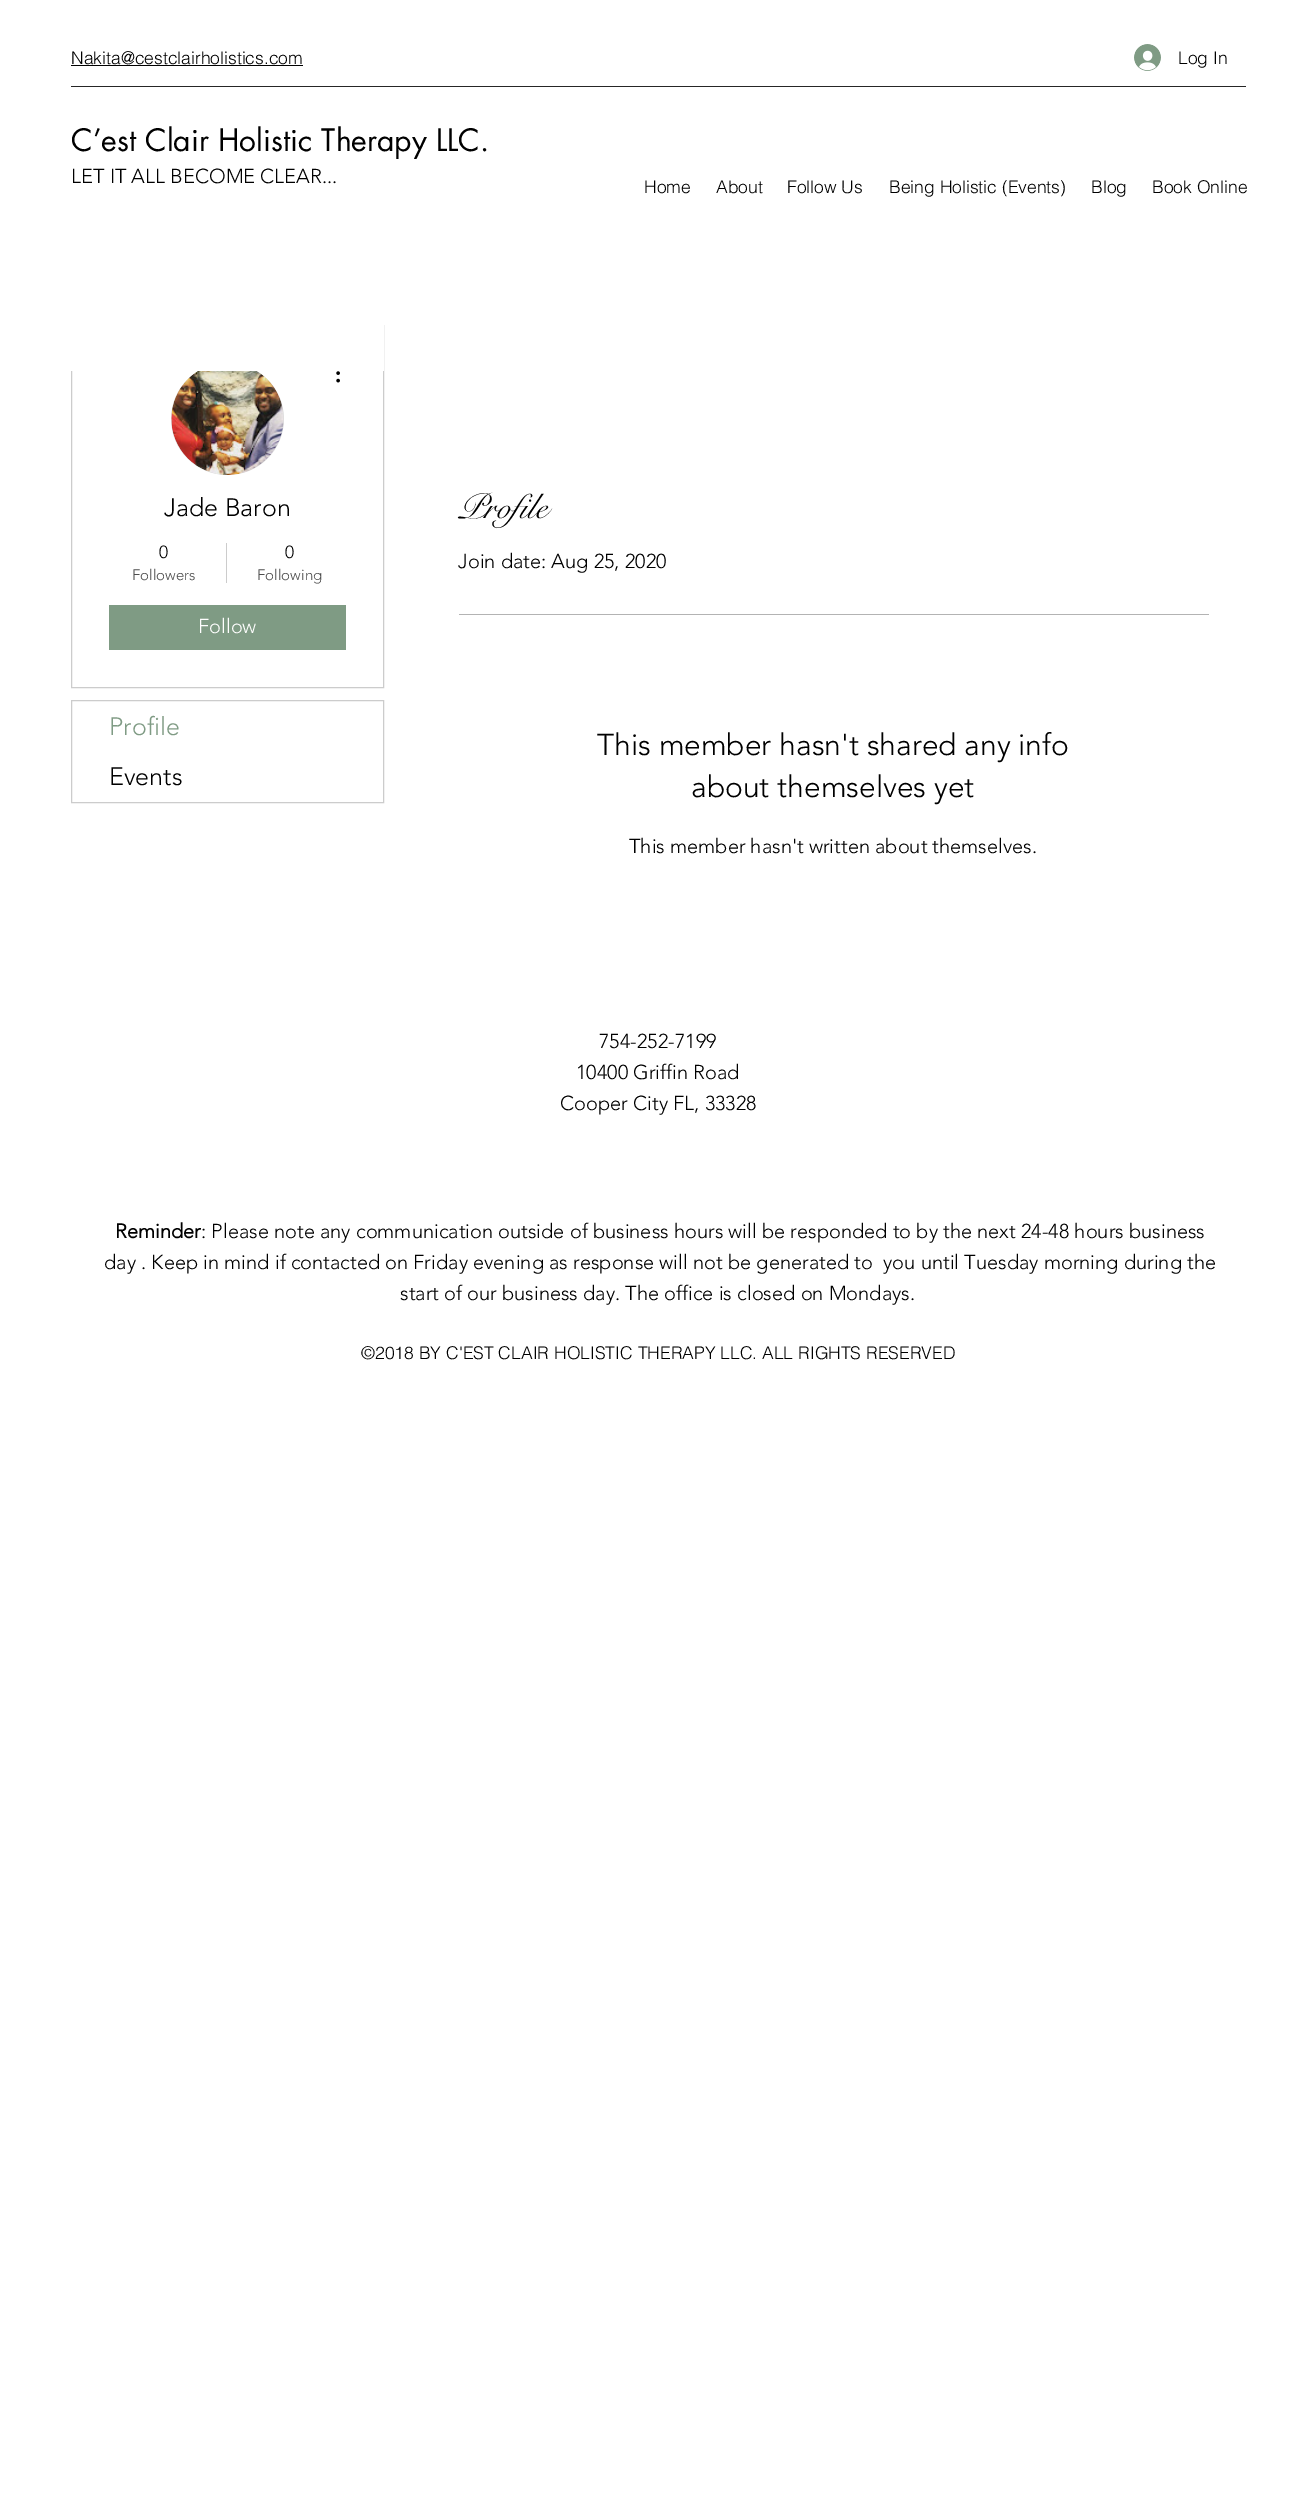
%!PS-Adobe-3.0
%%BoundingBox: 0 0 1316 2494
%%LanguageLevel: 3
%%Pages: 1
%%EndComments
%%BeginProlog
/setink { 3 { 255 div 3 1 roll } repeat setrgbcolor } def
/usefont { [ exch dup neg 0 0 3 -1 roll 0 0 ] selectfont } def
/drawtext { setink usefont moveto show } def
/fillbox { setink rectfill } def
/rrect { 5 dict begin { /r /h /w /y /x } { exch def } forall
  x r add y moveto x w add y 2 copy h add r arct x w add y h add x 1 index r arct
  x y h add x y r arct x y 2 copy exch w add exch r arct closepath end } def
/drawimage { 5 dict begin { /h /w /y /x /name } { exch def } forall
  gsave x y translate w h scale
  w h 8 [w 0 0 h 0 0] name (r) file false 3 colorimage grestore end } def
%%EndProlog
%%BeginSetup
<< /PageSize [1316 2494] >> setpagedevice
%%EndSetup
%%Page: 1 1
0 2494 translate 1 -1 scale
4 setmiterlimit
0 0 1316 2494 255 255 255 fillbox
(Nakita@cestclairholistics.com) 71 64 /helvetica-Light 17.5 0 0 0 drawtext
71 65 232 1 0 0 0 fillbox
(assets/img1.rgb) 1134 44 27 27 drawimage
(Log In) 1178 64 /helvetica-Light 17.5 0 0 0 drawtext
71 86 1175 1 38 38 38 fillbox
(C’est Clair Holistic Therapy LLC.) 71 151 /futura-Regular 30 0 0 0 drawtext
(LET IT ALL BECOME CLEAR...) 71 183 /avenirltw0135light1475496-Light 20 0 0 0 drawtext
(Home) 644 193 /helvetica-Light 17.5 0 0 0 drawtext
(About) 716 193 /helvetica-Light 17.5 0 0 0 drawtext
(Follow Us) 787 193 /helvetica-Light 17.5 0 0 0 drawtext
(Being Holistic \(Events\)) 889 193 /helvetica-Light 17.5 0 0 0 drawtext
(Blog) 1091 193 /helvetica-Light 17.5 0 0 0 drawtext
(Book Online) 1152 193 /helvetica-Light 17.5 0 0 0 drawtext
204 204 204 setink
71.5 325.5 312 362 rectstroke
216 216 216 setink
171 363 113 112 56 rrect fill
71 325 313 46 255 255 255 fillbox
(assets/img2.rgb) 171 371 113 104 drawimage
(assets/img3.rgb) 336 371 4 12 drawimage
(Jade Baron) 164 516 /avenirltw0135light1475496-Light 25 0 0 0 drawtext
(0) 159 558 /avenirltw0135light1475496-Light 17.5 0 0 0 drawtext
(Followers) 132 580 /avenirltw0135light1475496-Light 15 77 77 77 drawtext
226 543 1 40 204 204 204 fillbox
(0) 285 558 /avenirltw0135light1475496-Light 17.5 0 0 0 drawtext
(Following) 257 580 /avenirltw0135light1475496-Light 15 77 77 77 drawtext
109 605 237 45 127 155 132 fillbox
(Follow) 198 633 /avenirltw0135light1475496-Light 20 255 255 255 drawtext
204 204 204 setink
71.5 700.5 312 102 rectstroke
(Profile) 109 735 /avenirltw0135light1475496-Light 25 127 155 132 drawtext
(Events) 109 785 /avenirltw0135light1475496-Light 25 0 0 0 drawtext
(Profile) 458 518 /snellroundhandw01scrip-Regular 35 0 0 0 drawtext
(Join date: Aug 25, 2020) 458 568 /avenirltw0135light1475496-Light 20 0 0 0 drawtext
459 614 750 1 179 179 179 fillbox
(This member hasn't shared any info) 597 755 /avenirltw0135light1475496-Light 30 0 0 0 drawtext
(about themselves yet) 691 797 /avenirltw0135light1475496-Light 30 0 0 0 drawtext
(This member hasn't written about themselves.) 629 853 /avenirltw0135light1475496-Light 20 0 0 0 drawtext
(754-252-7199) 599 1048 /avenirltw0135light1475496-Light 20 0 0 0 drawtext
(10400 Griffin Road) 576 1079 /avenirltw0135light1475496-Light 20 0 0 0 drawtext
(Cooper City FL, 33328) 560 1110 /avenirltw0135light1475496-Light 20 0 0 0 drawtext
(Reminder) 115 1238 /avenirltw0135light1475496-Bold 20 0 0 0 drawtext
(: Please note any communication outside of business hours will be responded to by the next 24-48 hours business) 201 1238 /avenirltw0135light1475496-Light 20 0 0 0 drawtext
(day . Keep in mind if contacted on Friday evening as response will not be generated to  you until Tuesday morning during the) 104 1269 /avenirltw0135light1475496-Light 20 0 0 0 drawtext
(start of our business day. The office is closed on Mondays.) 400 1300 /avenirltw0135light1475496-Light 20 0 0 0 drawtext
(©2018 BY C'EST CLAIR HOLISTIC THERAPY LLC. ALL RIGHTS RESERVED) 361 1359 /helvetica-Light 17.5 0 0 0 drawtext
showpage
%%EOF
